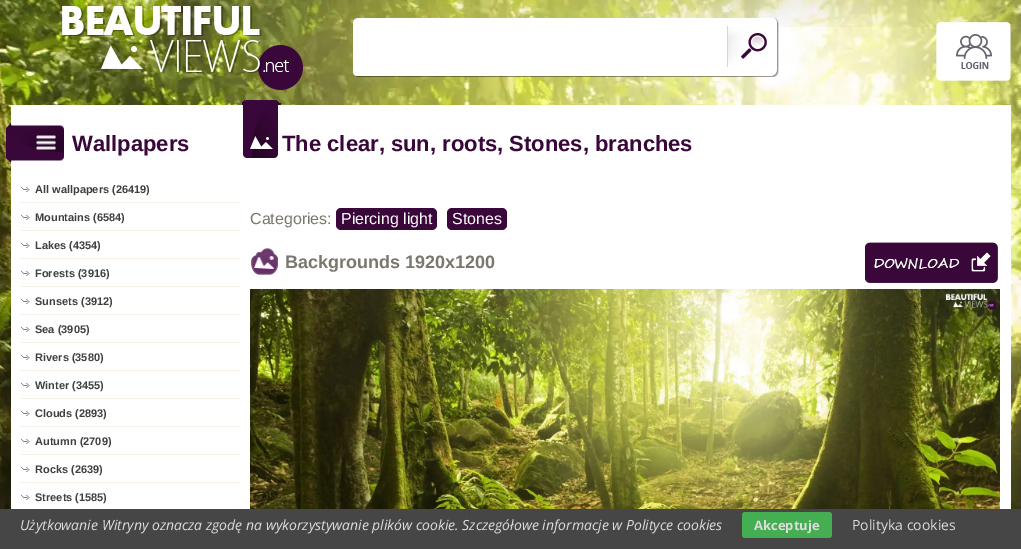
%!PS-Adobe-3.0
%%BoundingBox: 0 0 1021 549
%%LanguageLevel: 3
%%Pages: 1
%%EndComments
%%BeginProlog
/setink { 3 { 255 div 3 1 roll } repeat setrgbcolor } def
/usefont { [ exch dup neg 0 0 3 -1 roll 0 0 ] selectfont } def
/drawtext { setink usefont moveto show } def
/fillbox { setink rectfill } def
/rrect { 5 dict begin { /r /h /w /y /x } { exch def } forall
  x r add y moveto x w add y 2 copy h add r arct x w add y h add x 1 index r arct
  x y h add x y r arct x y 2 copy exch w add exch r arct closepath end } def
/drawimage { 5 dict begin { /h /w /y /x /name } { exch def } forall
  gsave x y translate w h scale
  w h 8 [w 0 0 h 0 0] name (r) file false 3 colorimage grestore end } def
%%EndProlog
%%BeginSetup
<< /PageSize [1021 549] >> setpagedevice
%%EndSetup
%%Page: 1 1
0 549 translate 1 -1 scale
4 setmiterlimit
0 0 1021 549 255 255 255 fillbox
(assets/img1.rgb) 0 0 1021 509 drawimage
(assets/img2.rgb) 0 0 1021 27 drawimage
(assets/img3.rgb) 62 6 241 84 drawimage
(assets/img4.rgb) 353 18 426 59 drawimage
(assets/img5.rgb) 936 22 75 59 drawimage
11 105 1000 404 255 255 255 fillbox
(assets/img6.rgb) 6 123 58 41 drawimage
(Wallpapers) 72 151 /LiberationSans-Bold 22 57 7 58 drawtext
(assets/img7.rgb) 21 187 9 5 drawimage
20 202 220 1 248 241 233 fillbox
(All wallpapers \(26419\)) 35 193 /LiberationSans-Bold 11 64 64 64 drawtext
(assets/img7.rgb) 21 215 9 5 drawimage
20 230 220 1 248 241 233 fillbox
(Mountains \(6584\)) 35 221 /LiberationSans-Bold 11 64 64 64 drawtext
(assets/img7.rgb) 21 243 9 5 drawimage
20 258 220 1 248 241 233 fillbox
(Lakes \(4354\)) 35 249 /LiberationSans-Bold 11 64 64 64 drawtext
(assets/img7.rgb) 21 271 9 5 drawimage
20 286 220 1 248 241 233 fillbox
(Forests \(3916\)) 35 277 /LiberationSans-Bold 11 64 64 64 drawtext
(assets/img7.rgb) 21 299 9 5 drawimage
20 314 220 1 248 241 233 fillbox
(Sunsets \(3912\)) 35 305 /LiberationSans-Bold 11 64 64 64 drawtext
(assets/img7.rgb) 21 327 9 5 drawimage
20 342 220 1 248 241 233 fillbox
(Sea \(3905\)) 35 333 /LiberationSans-Bold 11 64 64 64 drawtext
(assets/img7.rgb) 21 355 9 5 drawimage
20 370 220 1 248 241 233 fillbox
(Rivers \(3580\)) 35 361 /LiberationSans-Bold 11 64 64 64 drawtext
(assets/img7.rgb) 21 383 9 5 drawimage
20 398 220 1 248 241 233 fillbox
(Winter \(3455\)) 35 389 /LiberationSans-Bold 11 64 64 64 drawtext
(assets/img7.rgb) 21 411 9 5 drawimage
20 426 220 1 248 241 233 fillbox
(Clouds \(2893\)) 35 417 /LiberationSans-Bold 11 64 64 64 drawtext
(assets/img7.rgb) 21 439 9 5 drawimage
20 454 220 1 248 241 233 fillbox
(Autumn \(2709\)) 35 445 /LiberationSans-Bold 11 64 64 64 drawtext
(assets/img7.rgb) 21 467 9 5 drawimage
20 482 220 1 248 241 233 fillbox
(Rocks \(2639\)) 35 473 /LiberationSans-Bold 11 64 64 64 drawtext
(assets/img7.rgb) 21 495 9 5 drawimage
(Streets \(1585\)) 35 501 /LiberationSans-Bold 11 64 64 64 drawtext
(assets/img8.rgb) 242 100 39 58 drawimage
(The clear, sun, roots, Stones, branches) 282 151 /LiberationSans-Bold 22 57 7 58 drawtext
(Categories:) 250 224 /LiberationSans-Regular 16 122 119 108 drawtext
57 7 58 setink
336 208 101 22 5 rrect fill
(Piercing light) 341 224 /LiberationSans-Regular 16 255 255 255 drawtext
57 7 58 setink
447 208 60 22 5 rrect fill
(Stones) 452 224 /LiberationSans-Regular 16 255 255 255 drawtext
(assets/img9.rgb) 251 248 27 27 drawimage
(Backgrounds 1920x1200) 285 268 /LiberationSans-Bold 18 122 119 108 drawtext
(assets/img10.rgb) 865 242 133 41 drawimage
(assets/img11.rgb) 250 289 750 220 drawimage
0 509 1021 40 70 70 70 fillbox
(Użytkowanie Witryny oznacza zgodę na wykorzystywanie plików cookie. Szczegółowe informacje w Polityce cookies) 20 530 /OpenSans-Italic 14 221 221 221 drawtext
69 174 82 setink
742 512 90 26 3 rrect fill
(Akceptuje) 754 530 /OpenSans-Bold 13 221 221 221 drawtext
(Polityka cookies) 852 530 /OpenSans-Regular 14 221 221 221 drawtext
showpage
%%EOF
